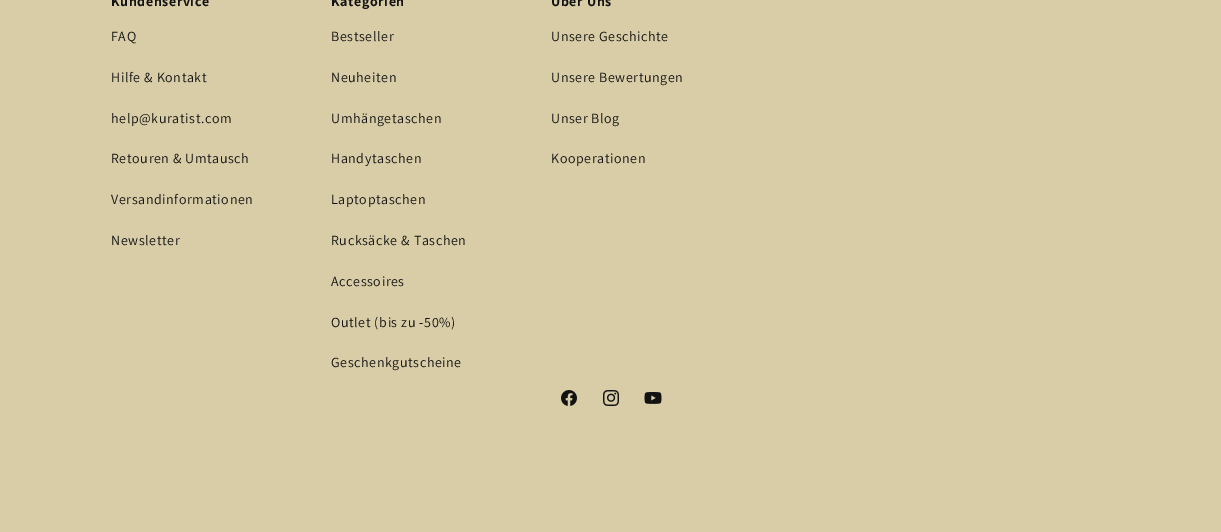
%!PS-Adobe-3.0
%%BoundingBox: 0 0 1221 532
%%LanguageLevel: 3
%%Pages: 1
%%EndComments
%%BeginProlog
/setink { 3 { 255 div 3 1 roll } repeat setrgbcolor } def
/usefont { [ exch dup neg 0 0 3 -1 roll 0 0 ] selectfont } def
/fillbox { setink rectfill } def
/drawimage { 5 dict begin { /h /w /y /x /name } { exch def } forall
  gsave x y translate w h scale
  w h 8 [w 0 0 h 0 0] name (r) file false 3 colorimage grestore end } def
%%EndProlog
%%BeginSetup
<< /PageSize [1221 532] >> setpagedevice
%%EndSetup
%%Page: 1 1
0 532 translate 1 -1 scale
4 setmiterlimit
0 0 1221 532 217 205 168 fillbox
/Assistant-Bold 14 usefont
18 18 18 setink
111 6 moveto 0.6 0 (Kundenservice) ashow
/Assistant-Regular 14 usefont
111 41 moveto 0.6 0 (FAQ) ashow
111 82 moveto 0.6 0 (Hilfe & Kontakt) ashow
111 123 moveto 0.6 0 (help@kuratist.com) ashow
111 163 moveto 0.6 0 (Retouren & Umtausch) ashow
111 204 moveto 0.6 0 (Versandinformationen) ashow
111 245 moveto 0.6 0 (Newsletter) ashow
/Assistant-Bold 14 usefont
331 6 moveto 0.6 0 (Kategorien) ashow
/Assistant-Regular 14 usefont
331 41 moveto 0.6 0 (Bestseller) ashow
331 82 moveto 0.6 0 (Neuheiten) ashow
331 123 moveto 0.6 0 (Umhängetaschen) ashow
331 163 moveto 0.6 0 (Handytaschen) ashow
331 204 moveto 0.6 0 (Laptoptaschen) ashow
331 245 moveto 0.6 0 (Rucksäcke & Taschen) ashow
331 286 moveto 0.6 0 (Accessoires) ashow
331 327 moveto 0.6 0 (Outlet \(bis zu -50%\)) ashow
331 367 moveto 0.6 0 (Geschenkgutscheine) ashow
/Assistant-Bold 14 usefont
551 6 moveto 0.6 0 (Über Uns) ashow
/Assistant-Regular 14 usefont
551 41 moveto 0.6 0 (Unsere Geschichte) ashow
551 82 moveto 0.6 0 (Unsere Bewertungen) ashow
551 123 moveto 0.6 0 (Unser Blog) ashow
551 163 moveto 0.6 0 (Kooperationen) ashow
(assets/img1.rgb) 561 390 16 16 drawimage
(assets/img2.rgb) 603 390 16 16 drawimage
(assets/img3.rgb) 644 392 18 12 drawimage
showpage
%%EOF
